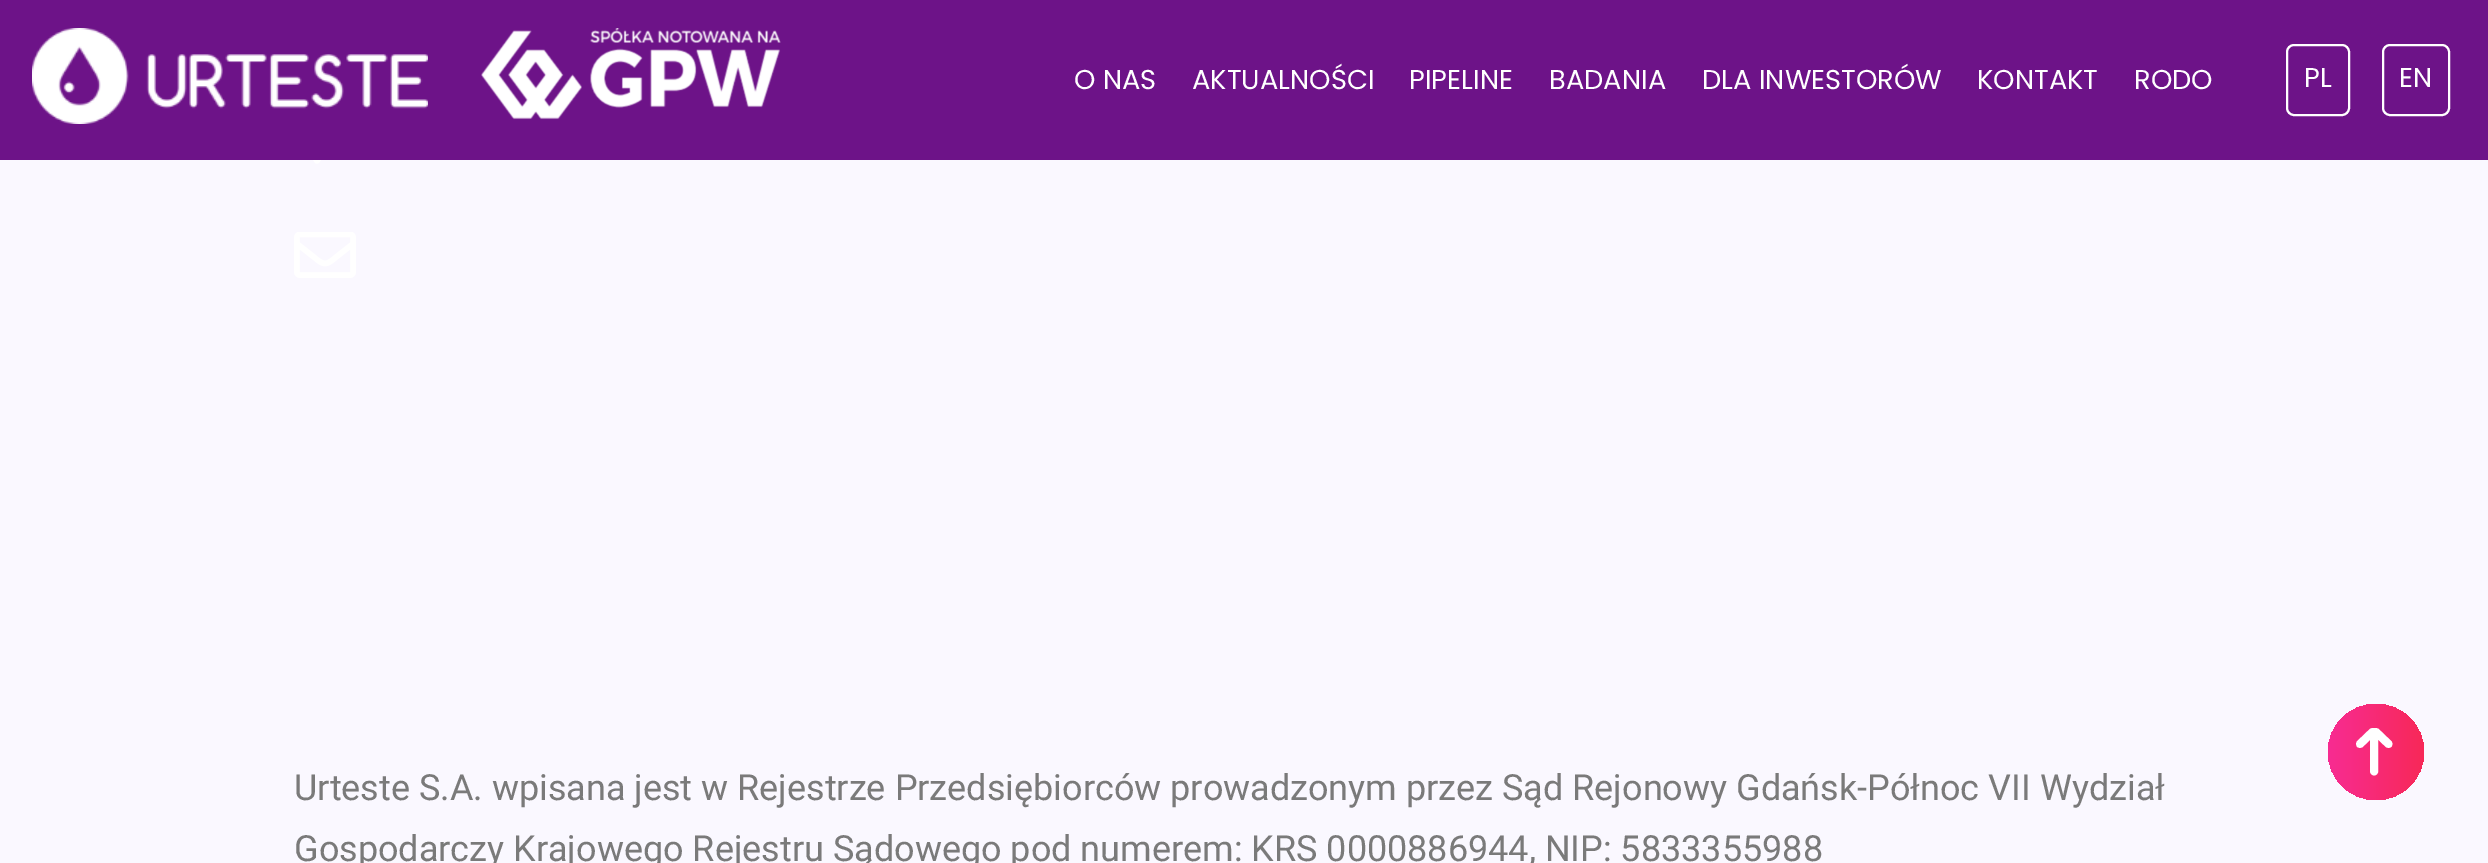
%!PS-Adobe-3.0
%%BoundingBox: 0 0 2488 863
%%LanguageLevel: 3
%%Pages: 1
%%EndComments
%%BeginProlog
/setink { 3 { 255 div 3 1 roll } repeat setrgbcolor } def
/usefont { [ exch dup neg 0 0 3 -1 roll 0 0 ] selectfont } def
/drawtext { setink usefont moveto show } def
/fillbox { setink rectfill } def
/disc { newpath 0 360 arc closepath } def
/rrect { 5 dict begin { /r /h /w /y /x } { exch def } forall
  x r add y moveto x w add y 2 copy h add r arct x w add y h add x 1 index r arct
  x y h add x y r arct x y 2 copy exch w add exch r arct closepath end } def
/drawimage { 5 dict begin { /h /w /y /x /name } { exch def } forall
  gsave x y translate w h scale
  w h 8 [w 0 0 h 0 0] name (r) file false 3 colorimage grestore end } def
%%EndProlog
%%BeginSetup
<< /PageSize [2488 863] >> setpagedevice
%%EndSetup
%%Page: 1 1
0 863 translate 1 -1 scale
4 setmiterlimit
0 0 2488 863 250 248 255 fillbox
255 255 255 setink
315 163 moveto 305 148 lineto 301 143 296 136 294 129 curveto 289 105 323 91 337 112 curveto 347 128 335 141 326 153 curveto 319 163 lineto 317 164 316 164 315 163 curveto closepath 310 132 moveto 319 141 333 127 324 118 curveto 315 109 301 123 310 132 curveto closepath fill
0 0 2488 160 109 19 136 fillbox
(assets/img1.rgb) 32 28 396 96 drawimage
(assets/img2.rgb) 481 28 300 92 drawimage
(O NAS) 1074 89 /Poppins-Regular 27.25 255 255 255 drawtext
(AKTUALNOŚCI) 1192 89 /Poppins-Regular 27.25 255 255 255 drawtext
(PIPELINE) 1409 89 /Poppins-Regular 27.25 255 255 255 drawtext
(BADANIA) 1549 89 /Poppins-Regular 27.25 255 255 255 drawtext
(DLA INWESTORÓW) 1702 89 /Poppins-Regular 27.25 255 255 255 drawtext
(KONTAKT) 1977 89 /Poppins-Regular 27.25 255 255 255 drawtext
(RODO) 2134 89 /Poppins-Regular 27.25 255 255 255 drawtext
2 setlinewidth
2287 45 62 70 7 rrect stroke
(PL) 2304 87 /Poppins-Regular 27.25 255 255 255 drawtext
2383 45 66 70 7 rrect stroke
(EN) 2399 87 /Poppins-Regular 27.25 255 255 255 drawtext
(assets/img3.rgb) 294 232 62 46 drawimage
(Urteste S.A. wpisana jest w Rejestrze Przedsiębiorców prowadzonym przez Sąd Rejonowy Gdańsk-Północ VII Wydział) 294 800 /Roboto-Regular 36 122 122 122 drawtext
(Gospodarczy Krajowego Rejestru Sądowego pod numerem: KRS 0000886944, NIP: 5833355988) 294 861 /Roboto-Regular 36 122 122 122 drawtext
gsave 2376 752 48 disc clip newpath
<< /ShadingType 2 /ColorSpace /DeviceRGB /Coords [2328 752 2424 752] /Extend [true true] /Function << /FunctionType 2 /Domain [0 1] /C0 [0.969 0.173 0.573] /C1 [0.973 0.157 0.345] /N 1 >> >> shfill grestore
255 255 255 setink
8 setlinewidth
1 setlinecap
1 setlinejoin
2374 771.5 moveto 2374 732 lineto 2360 744 moveto 2372.5 732 lineto 2388.5 744 moveto 2376 732 lineto stroke
showpage
%%EOF
